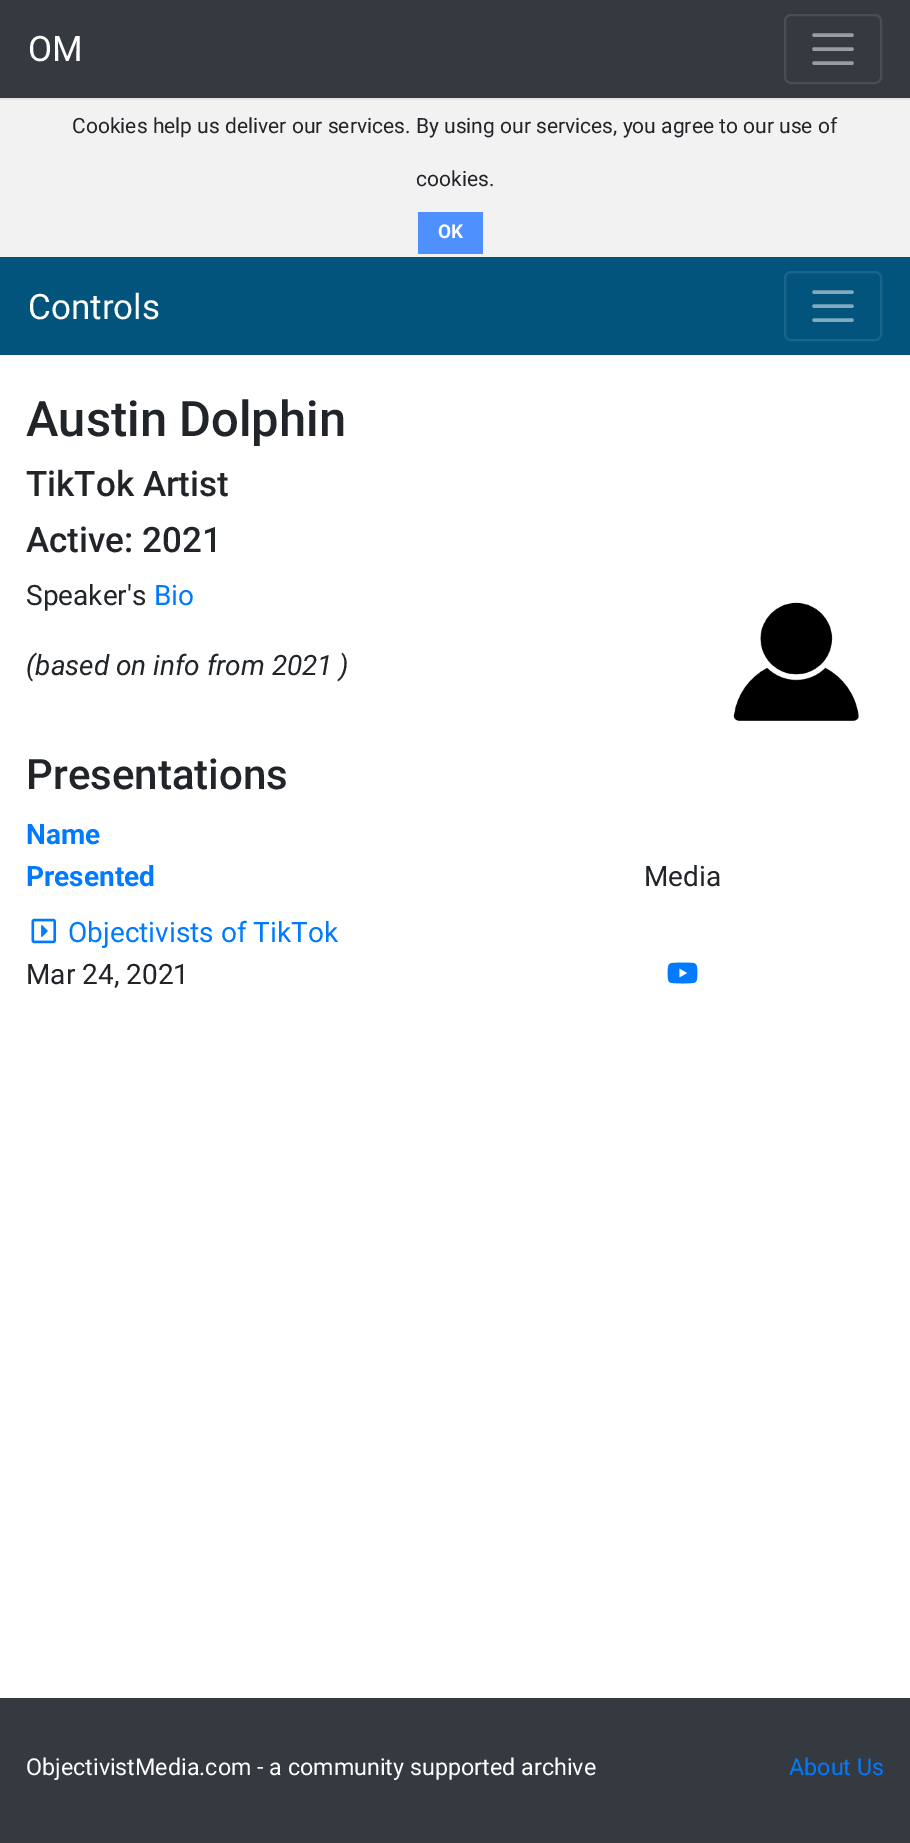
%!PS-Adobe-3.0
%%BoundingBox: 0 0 910 1843
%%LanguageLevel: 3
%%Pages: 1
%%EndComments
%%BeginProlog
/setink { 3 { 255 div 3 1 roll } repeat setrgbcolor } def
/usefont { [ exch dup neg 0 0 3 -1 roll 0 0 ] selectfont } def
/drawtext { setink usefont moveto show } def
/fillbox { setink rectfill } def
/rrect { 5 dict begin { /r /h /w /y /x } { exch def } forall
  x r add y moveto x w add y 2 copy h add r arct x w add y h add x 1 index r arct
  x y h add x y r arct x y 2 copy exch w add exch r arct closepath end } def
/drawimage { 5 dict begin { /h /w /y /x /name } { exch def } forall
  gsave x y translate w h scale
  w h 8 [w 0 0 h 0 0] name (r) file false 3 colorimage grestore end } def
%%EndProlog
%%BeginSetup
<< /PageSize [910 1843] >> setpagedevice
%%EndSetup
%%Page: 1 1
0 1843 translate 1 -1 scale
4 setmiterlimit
0 0 910 1843 255 255 255 fillbox
0 0 910 98 52 58 64 fillbox
(OM) 28 61 /Roboto-Regular 35 255 255 255 drawtext
72 78 83 setink
2 setlinewidth
785 15 96 68 6 rrect stroke
154 157 160 setink
3.5 setlinewidth
1 setlinecap
814 35 moveto 852 35 lineto 814 49 moveto 852 49 lineto 814 63 moveto 852 63 lineto stroke
0 100 910 157 242 242 242 fillbox
0 98 910 2 228 228 228 fillbox
(Cookies help us deliver our services. By using our services, you agree to our use of) 72 133 /Roboto-Regular 21 33 37 41 drawtext
(cookies.) 416 186 /Roboto-Regular 21 33 37 41 drawtext
418 212 65 42 77 144 254 fillbox
(OK) 438 238 /Roboto-Bold 19 255 255 255 drawtext
0 257 910 98 2 84 125 fillbox
(Controls) 28 319 /Roboto-Regular 35 255 255 255 drawtext
27 101 138 setink
2 setlinewidth
0 setlinecap
785 272 96 68 6 rrect stroke
129 170 190 setink
3.5 setlinewidth
1 setlinecap
814 292 moveto 852 292 lineto 814 306 moveto 852 306 lineto 814 320 moveto 852 320 lineto stroke
(Austin Dolphin) 26 436 /Roboto-Medium 49 33 37 41 drawtext
(TikTok Artist) 26 496 /Roboto-Medium 35 33 37 41 drawtext
(Active: 2021) 26 552 /Roboto-Medium 35 33 37 41 drawtext
(Speaker's) 26 605 /Roboto-Regular 28 33 37 41 drawtext
(Bio) 154 605 /Roboto-Regular 28 0 123 255 drawtext
(\(based on info from 2021 \)) 26 675 /Roboto-Italic 28 33 37 41 drawtext
(assets/img1.rgb) 733 602 126 119 drawimage
(Presentations) 26 789 /Roboto-Medium 42 33 37 41 drawtext
(Name) 26 844 /Roboto-Bold 28 0 123 255 drawtext
(Presented) 26 886 /Roboto-Bold 28 0 123 255 drawtext
(Media) 644 886 /Roboto-Regular 28 33 37 41 drawtext
(assets/img2.rgb) 31 918 25 26 drawimage
(Objectivists of TikTok) 68 942 /Roboto-Regular 28 0 123 255 drawtext
(Mar 24, 2021) 26 984 /Roboto-Regular 28 33 37 41 drawtext
(assets/img3.rgb) 667 962 31 22 drawimage
0 1698 910 145 52 58 64 fillbox
(ObjectivistMedia.com - a community supported archive) 26 1775 /Roboto-Regular 23.3 255 255 255 drawtext
(About Us) 789 1775 /Roboto-Regular 23.3 0 123 255 drawtext
showpage
%%EOF
